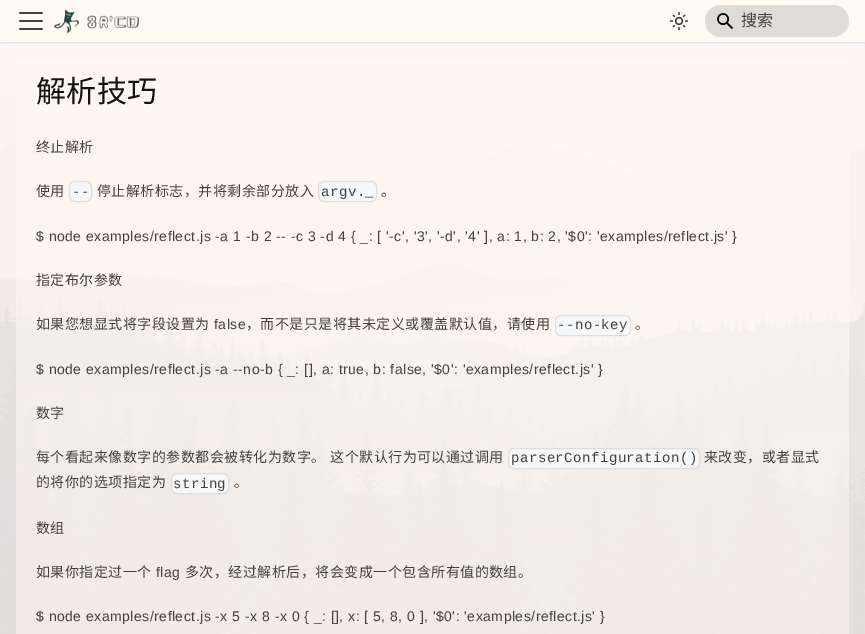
%!PS-Adobe-3.0
%%BoundingBox: 0 0 865 634
%%LanguageLevel: 3
%%Pages: 1
%%EndComments
%%BeginProlog
/setink { 3 { 255 div 3 1 roll } repeat setrgbcolor } def
/usefont { [ exch dup neg 0 0 3 -1 roll 0 0 ] selectfont } def
/fillbox { setink rectfill } def
/setalpha { dup .setfillconstantalpha .setstrokeconstantalpha } def
/rrect { 5 dict begin { /r /h /w /y /x } { exch def } forall
  x r add y moveto x w add y 2 copy h add r arct x w add y h add x 1 index r arct
  x y h add x y r arct x y 2 copy exch w add exch r arct closepath end } def
/softshadow { 12 dict begin { /a /b /q /h /w /y /x } { exch def } forall gsave /was 0 def
  9 -2 -9 { dup b mul 4 div /e exch def 1 sub .425 mul 2.718 exch exp 1 add a .99 .min exch div /now exch def
    1 1 now sub 1 was sub div sub setalpha /was now def
    w h .min e 2 mul add 0 gt { x e sub y e sub w e 2 mul add h e 2 mul add
      q e add b .6 mul add w h .min 2 div e add .min 0 .max rrect fill } if } for grestore end } def
/drawimage { 5 dict begin { /h /w /y /x /name } { exch def } forall
  gsave x y translate w h scale
  w h 8 [w 0 0 h 0 0] name (r) file false 3 colorimage grestore end } def
%%EndProlog
%%BeginSetup
<< /PageSize [865 634] /PageUsesTransparency true >> setpagedevice
%%EndSetup
%%Page: 1 1
0 .pushpdf14devicefilter
0 634 translate 1 -1 scale
4 setmiterlimit
0 0 865 634 255 255 255 fillbox
(assets/img1.rgb) 0 42 865 592 drawimage
0 0 0 setink
0 1 865 42 0 1 0.1 softshadow
0 0 865 42 255 251 244 fillbox
(assets/img2.rgb) 19 12 24 18 drawimage
(assets/img3.rgb) 54 9 85 25 drawimage
(assets/img4.rgb) 669 11 20 20 drawimage
222 220 216 setink
705 5 144 32 16 rrect fill
(assets/img5.rgb) 717 13 16 16 drawimage
/NotoSansCJKSC-Regular 16 usefont
67 64 63 setink
741 26 moveto 0.48 0 (搜索) ashow
0.5 setalpha
255 250 243 setink
16 58 833 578 2 rrect fill
/NotoSansCJKSC-Regular 30 usefont
1 setalpha
20 20 20 setink
36 102 moveto 0.48 0 (解析技巧) ashow
/NotoSansCJKSC-Regular 14 usefont
67 64 63 setink
36 152 moveto 0.48 0 (终止解析) ashow
36 196 moveto 0.48 0 (使用) ashow
246 247 248 setink
69.5 181.5 22 20 5.5 rrect gsave fill grestore
222 222 223 setink
stroke
/LiberationMono-Regular 14 usefont
67 64 63 setink
72 196 moveto 0.48 0 (--) ashow
/NotoSansCJKSC-Regular 14 usefont
97 196 moveto 0.48 0 (停止解析标志，并将剩余部分放入) ashow
246 247 248 setink
318.5 181.5 58 20 5.5 rrect gsave fill grestore
222 222 223 setink
stroke
/LiberationMono-Regular 14 usefont
67 64 63 setink
321 196 moveto 0.48 0 (argv._) ashow
/NotoSansCJKSC-Regular 14 usefont
381 196 moveto 0.48 0 (。) ashow
/LiberationSans-Regular 14 usefont
36 241 moveto 0.48 0 ($ node examples/reflect.js -a 1 -b 2 -- -c 3 -d 4 { _: [ '-c', '3', '-d', '4' ], a: 1, b: 2, '$0': 'examples/reflect.js' }) ashow
/NotoSansCJKSC-Regular 14 usefont
36 285 moveto 0.48 0 (指定布尔参数) ashow
36 329 moveto 0.48 0 (如果您想显式将字段设置为) ashow
/LiberationSans-Regular 14 usefont
214 329 moveto 0.48 0 (false) ashow
/NotoSansCJKSC-Regular 14 usefont
246 329 moveto 0.48 0 (，而不是只是将其未定义或覆盖默认值，请使用) ashow
246 247 248 setink
555.5 315.5 75 20 5.5 rrect gsave fill grestore
221 222 223 setink
stroke
/LiberationMono-Regular 14 usefont
67 64 63 setink
557 329 moveto 0.48 0 (--no-key) ashow
/NotoSansCJKSC-Regular 14 usefont
635 329 moveto 0.48 0 (。) ashow
/LiberationSans-Regular 14 usefont
36 374 moveto 0.48 0 ($ node examples/reflect.js -a --no-b { _: [], a: true, b: false, '$0': 'examples/reflect.js' }) ashow
/NotoSansCJKSC-Regular 14 usefont
36 418 moveto 0.48 0 (数字) ashow
36 462 moveto 1 0 32 0.48 0 (每个看起来像数字的参数都会被转化为数字。 这个默认行为可以通过调用) awidthshow
246 247 248 setink
508 448 192 21 6 rrect fill
0.1 setalpha
0 0 0 setink
508.5 448.5 191 20 5.5 rrect stroke
/LiberationMono-Regular 14 usefont
1 setalpha
67 64 63 setink
511 462 moveto 0.48 0 (parserConfiguration\(\)) ashow
/NotoSansCJKSC-Regular 14 usefont
704 462 moveto 0.48 0 (来改变，或者显式) ashow
36 487 moveto 0.48 0 (的将你的选项指定为) ashow
246 247 248 setink
171 473 58 21 6 rrect fill
0.1 setalpha
0 0 0 setink
171.5 473.5 57 20 5.5 rrect stroke
/LiberationMono-Regular 14 usefont
1 setalpha
67 64 63 setink
173 488 moveto 0.48 0 (string) ashow
/NotoSansCJKSC-Regular 14 usefont
234 487 moveto 0.48 0 (。) ashow
36 533 moveto 0.48 0 (数组) ashow
36 577 moveto 0.48 0 (如果你指定过一个) ashow
/LiberationSans-Regular 14 usefont
156 577 moveto 0.48 0 (flag) ashow
/NotoSansCJKSC-Regular 14 usefont
185 577 moveto 0.48 0 (多次，经过解析后，将会变成一个包含所有值的数组。) ashow
/LiberationSans-Regular 14 usefont
36 621 moveto 0.48 0 ($ node examples/reflect.js -x 5 -x 8 -x 0 { _: [], x: [ 5, 8, 0 ], '$0': 'examples/reflect.js' }) ashow
.poppdf14devicefilter showpage
%%EOF
